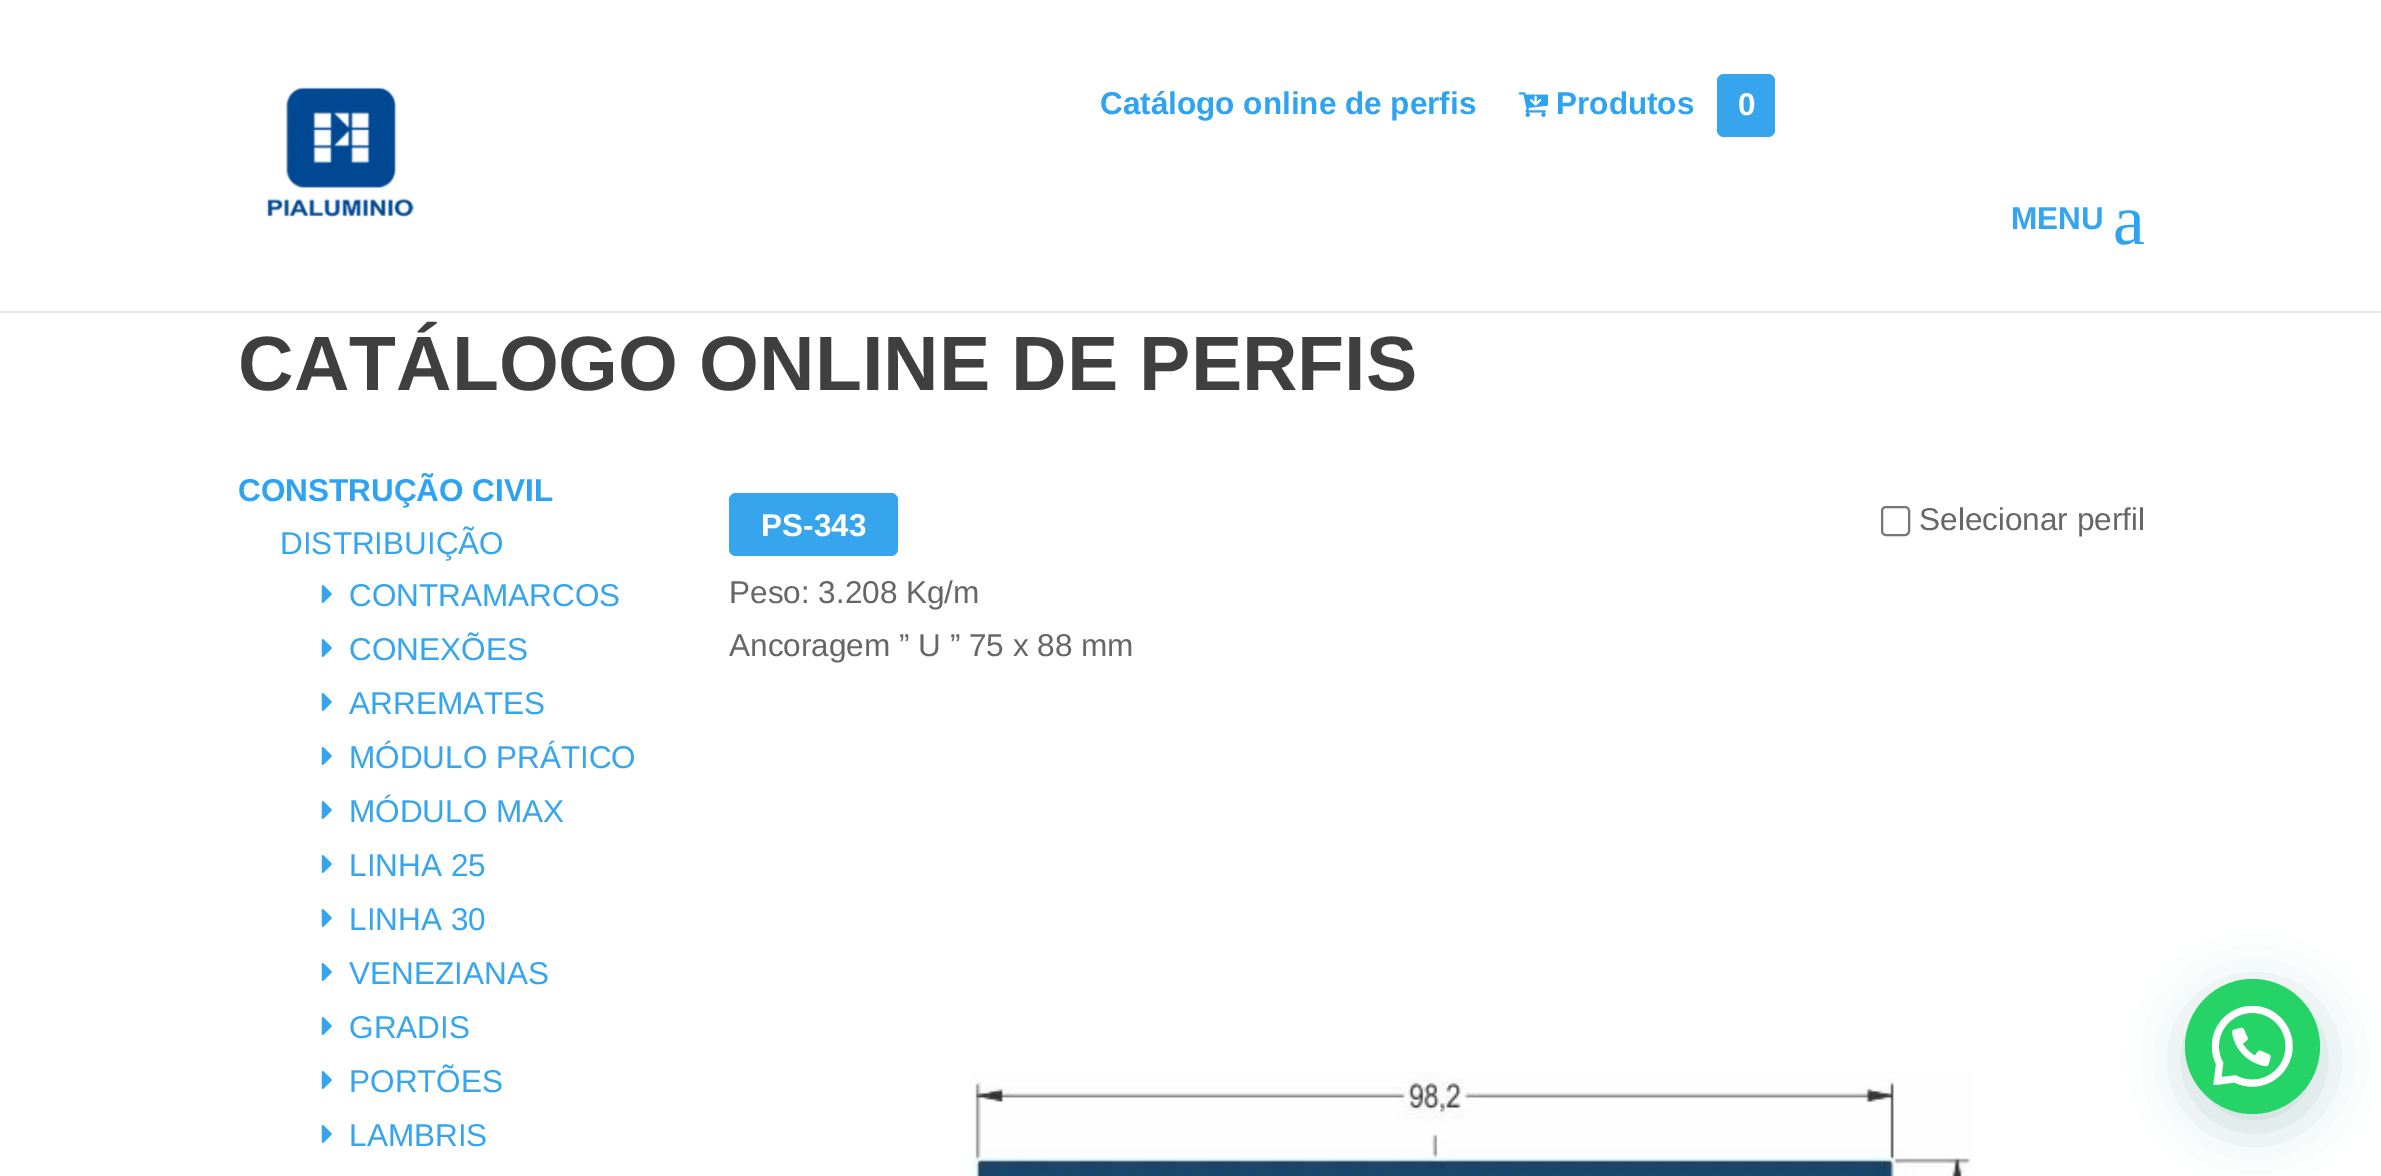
%!PS-Adobe-3.0
%%BoundingBox: 0 0 2381 1176
%%LanguageLevel: 3
%%Pages: 1
%%EndComments
%%BeginProlog
/setink { 3 { 255 div 3 1 roll } repeat setrgbcolor } def
/usefont { [ exch dup neg 0 0 3 -1 roll 0 0 ] selectfont } def
/drawtext { setink usefont moveto show } def
/fillbox { setink rectfill } def
/setalpha { dup .setfillconstantalpha .setstrokeconstantalpha } def
/disc { newpath 0 360 arc closepath } def
/rrect { 5 dict begin { /r /h /w /y /x } { exch def } forall
  x r add y moveto x w add y 2 copy h add r arct x w add y h add x 1 index r arct
  x y h add x y r arct x y 2 copy exch w add exch r arct closepath end } def
/softshadow { 12 dict begin { /a /b /q /h /w /y /x } { exch def } forall gsave /was 0 def
  9 -2 -9 { dup b mul 4 div /e exch def 1 sub .425 mul 2.718 exch exp 1 add a .99 .min exch div /now exch def
    1 1 now sub 1 was sub div sub setalpha /was now def
    w h .min e 2 mul add 0 gt { x e sub y e sub w e 2 mul add h e 2 mul add
      q e add b .6 mul add w h .min 2 div e add .min 0 .max rrect fill } if } for grestore end } def
/drawimage { 5 dict begin { /h /w /y /x /name } { exch def } forall
  gsave x y translate w h scale
  w h 8 [w 0 0 h 0 0] name (r) file false 3 colorimage grestore end } def
%%EndProlog
%%BeginSetup
<< /PageSize [2381 1176] /PageUsesTransparency true >> setpagedevice
%%EndSetup
%%Page: 1 1
0 .pushpdf14devicefilter
0 1176 translate 1 -1 scale
4 setmiterlimit
0 0 2381 1176 255 255 255 fillbox
230 230 230 setink
0 310 moveto 0 313 lineto 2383 313 lineto 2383 2 lineto 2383 310 lineto closepath fill
0 310 2381 1 255 255 255 fillbox
(assets/img1.rgb) 267 87 148 130 drawimage
(Catálogo online de perfis) 1100 114 /LiberationSans-Bold 31.5 46 163 242 drawtext
(assets/img2.rgb) 1518 92 30 25 drawimage
(Produtos) 1556 114 /LiberationSans-Bold 31.5 46 163 242 drawtext
54 165 237 setink
1717 74 58 63 7 rrect fill
(0) 1738 115 /LiberationSans-Bold 31.5 255 255 255 drawtext
(MENU) 2011 229 /LiberationSans-Bold 31.5 54 165 237 drawtext
(a) 2113 244 /LiberationSerif-Regular 72 46 163 242 drawtext
(CATÁLOGO ONLINE DE PERFIS) 238 390 /LiberationSans-Bold 76.9 63 63 63 drawtext
(CONSTRUÇÃO CIVIL) 238 501 /LiberationSans-Bold 31.5 46 163 242 drawtext
(DISTRIBUIÇÃO) 280 554 /LiberationSans-Regular 31.5 54 165 237 drawtext
(assets/img3.rgb) 321 585 11 18 drawimage
(CONTRAMARCOS) 349 606 /LiberationSans-Regular 31.5 54 165 237 drawtext
(assets/img3.rgb) 321 639 11 18 drawimage
(CONEXÕES) 349 660 /LiberationSans-Regular 31.5 54 165 237 drawtext
(assets/img3.rgb) 321 693 11 18 drawimage
(ARREMATES) 349 714 /LiberationSans-Regular 31.5 54 165 237 drawtext
(assets/img3.rgb) 321 747 11 18 drawimage
(MÓDULO PRÁTICO) 349 768 /LiberationSans-Regular 31.5 54 165 237 drawtext
(assets/img3.rgb) 321 801 11 18 drawimage
(MÓDULO MAX) 349 822 /LiberationSans-Regular 31.5 54 165 237 drawtext
(assets/img3.rgb) 321 855 11 18 drawimage
(LINHA 25) 349 876 /LiberationSans-Regular 31.5 54 165 237 drawtext
(assets/img3.rgb) 321 909 11 18 drawimage
(LINHA 30) 349 930 /LiberationSans-Regular 31.5 54 165 237 drawtext
(assets/img3.rgb) 321 963 11 18 drawimage
(VENEZIANAS) 349 984 /LiberationSans-Regular 31.5 54 165 237 drawtext
(assets/img3.rgb) 321 1017 11 18 drawimage
(GRADIS) 349 1038 /LiberationSans-Regular 31.5 54 165 237 drawtext
(assets/img3.rgb) 321 1071 11 18 drawimage
(PORTÕES) 349 1092 /LiberationSans-Regular 31.5 54 165 237 drawtext
(assets/img3.rgb) 321 1125 11 18 drawimage
(LAMBRIS) 349 1146 /LiberationSans-Regular 31.5 54 165 237 drawtext
729 493 169 63 7 rrect fill
(PS-343) 761 536 /LiberationSans-Bold 31.5 255 255 255 drawtext
118 118 118 setink
2 setlinewidth
1882 507 27 28 4 rrect stroke
(Selecionar perfil) 1919 530 /LiberationSans-Regular 31.5 102 102 102 drawtext
(Peso: 3.208 Kg/m) 729 603 /LiberationSans-Regular 31.5 102 102 102 drawtext
(Ancoragem ” U ” 75 x 88 mm) 729 656 /LiberationSans-Regular 31.5 102 102 102 drawtext
(assets/img4.rgb) 970 1072 1003 104 drawimage
7 94 84 setink
2187 992 135 135 67.5 27 0.24 softshadow
37 211 102 setink
2252.5 1046.5 67.5 disc fill
(assets/img5.rgb) 2212 1006 81 81 drawimage
.poppdf14devicefilter showpage
%%EOF
